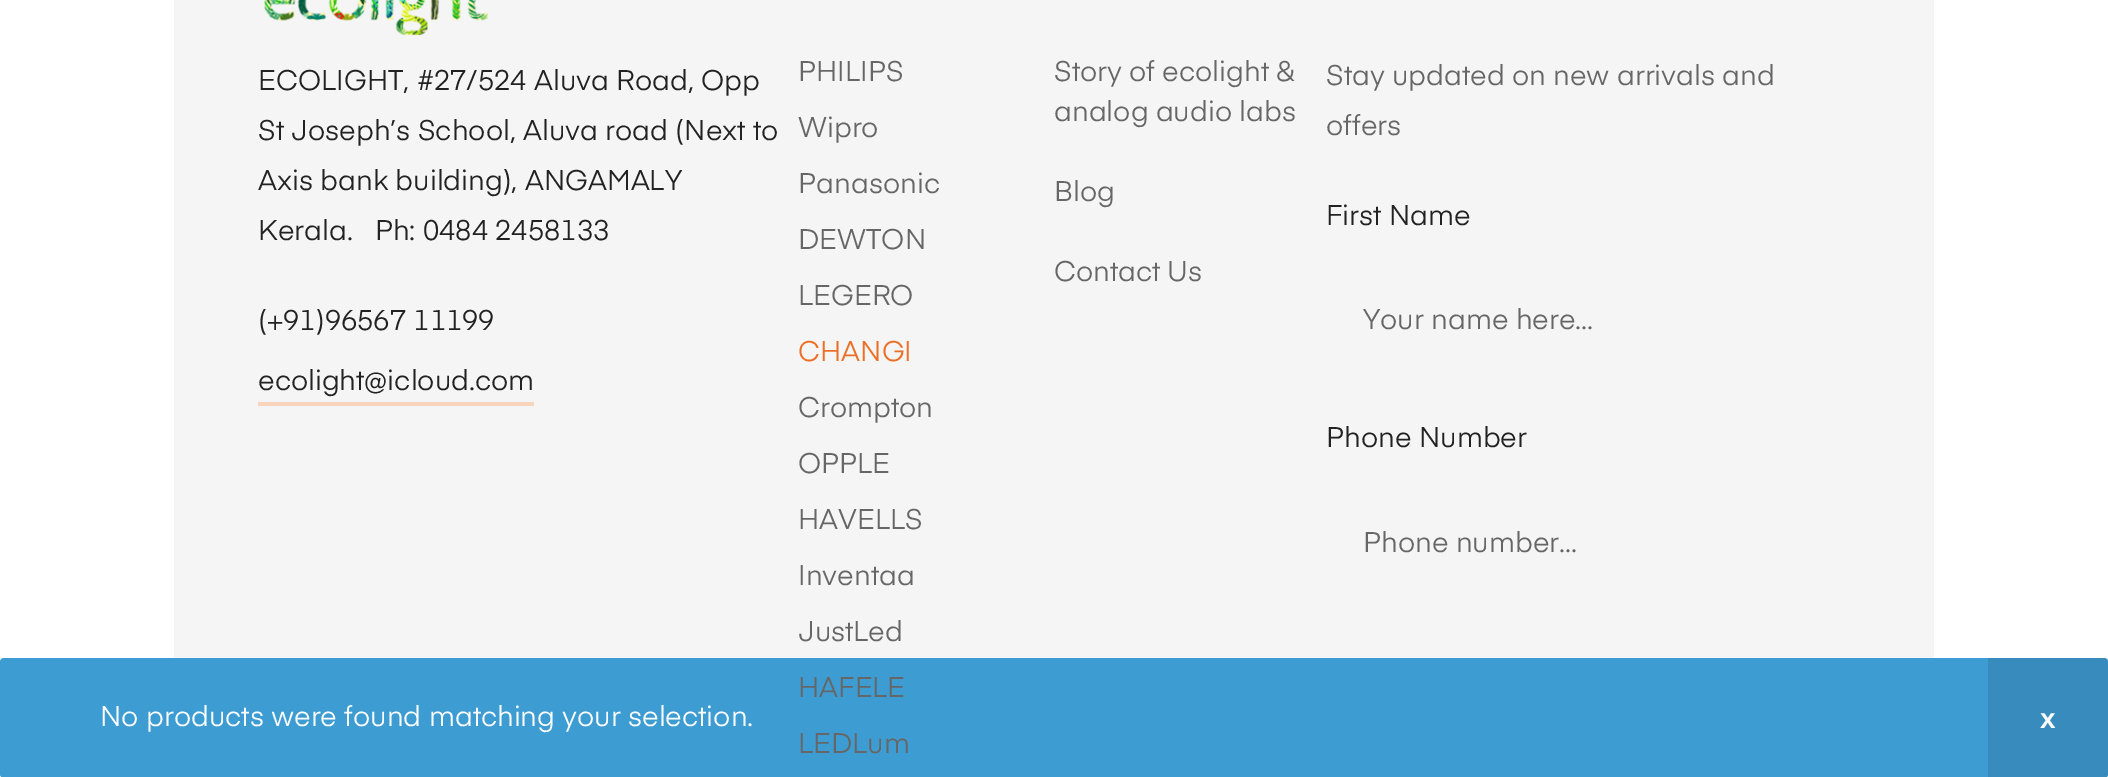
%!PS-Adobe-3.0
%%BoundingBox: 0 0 2108 777
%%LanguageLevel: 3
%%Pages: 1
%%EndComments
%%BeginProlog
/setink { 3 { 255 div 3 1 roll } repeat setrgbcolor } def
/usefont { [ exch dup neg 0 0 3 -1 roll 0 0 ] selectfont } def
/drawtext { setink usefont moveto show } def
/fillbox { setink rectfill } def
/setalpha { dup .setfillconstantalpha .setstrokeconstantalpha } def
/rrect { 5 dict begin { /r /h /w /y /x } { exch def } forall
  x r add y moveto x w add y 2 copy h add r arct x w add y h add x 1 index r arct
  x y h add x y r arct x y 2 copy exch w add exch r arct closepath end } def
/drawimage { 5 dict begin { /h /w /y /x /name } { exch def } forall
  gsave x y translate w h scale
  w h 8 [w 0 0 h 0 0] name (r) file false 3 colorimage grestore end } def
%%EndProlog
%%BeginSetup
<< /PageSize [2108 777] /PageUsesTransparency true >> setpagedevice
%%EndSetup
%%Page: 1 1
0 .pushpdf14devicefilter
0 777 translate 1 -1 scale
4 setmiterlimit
0 0 2108 777 255 255 255 fillbox
174 0 1760 658 245 245 245 fillbox
(assets/img1.rgb) 264 0 225 36 drawimage
(ECOLIGHT, #27/524 Aluva Road, Opp) 258 90 /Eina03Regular-Regular 28 34 34 34 drawtext
(St Joseph’s School, Aluva road \(Next to) 258 140 /Eina03Regular-Regular 28 34 34 34 drawtext
(Axis bank building\), ANGAMALY) 258 190 /Eina03Regular-Regular 28 34 34 34 drawtext
(Kerala.   Ph: 0484 2458133) 258 240 /Eina03Regular-Regular 28 34 34 34 drawtext
(\(+91\)96567 11199) 258 330 /Eina03Regular-Regular 28 34 34 34 drawtext
258 402 276 4 249 212 189 fillbox
(ecolight@icloud.com) 258 390 /Eina03Regular-Regular 28 34 34 34 drawtext
(PHILIPS) 798 81 /Eina03Regular-Regular 28 102 102 102 drawtext
(Wipro) 798 137 /Eina03Regular-Regular 28 102 102 102 drawtext
(Panasonic) 798 193 /Eina03Regular-Regular 28 102 102 102 drawtext
(DEWTON) 798 249 /Eina03Regular-Regular 28 102 102 102 drawtext
(LEGERO) 798 305 /Eina03Regular-Regular 28 102 102 102 drawtext
(CHANGI) 798 361 /Eina03Regular-Regular 28 235 112 37 drawtext
(Crompton) 798 417 /Eina03Regular-Regular 28 102 102 102 drawtext
(OPPLE) 798 473 /Eina03Regular-Regular 28 102 102 102 drawtext
(HAVELLS) 798 529 /Eina03Regular-Regular 28 102 102 102 drawtext
(Inventaa) 798 585 /Eina03Regular-Regular 28 102 102 102 drawtext
(JustLed) 798 641 /Eina03Regular-Regular 28 102 102 102 drawtext
61 156 210 setink
0 658 2108 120 4 rrect fill
(HAFELE) 798 697 /Eina03Regular-Regular 28 102 102 102 drawtext
(LEDLum) 798 753 /Eina03Regular-Regular 28 102 102 102 drawtext
(Story of ecolight &) 1054 81 /Eina03Regular-Regular 28 102 102 102 drawtext
(analog audio labs) 1054 121 /Eina03Regular-Regular 28 102 102 102 drawtext
(Blog) 1054 201 /Eina03Regular-Regular 28 102 102 102 drawtext
(Contact Us) 1054 281 /Eina03Regular-Regular 28 102 102 102 drawtext
(Stay updated on new arrivals and) 1326 85 /Eina03Regular-Regular 28 102 102 102 drawtext
(offers) 1326 135 /Eina03Regular-Regular 28 102 102 102 drawtext
(First Name) 1326 225 /Eina03Regular-Regular 28 34 34 34 drawtext
(Your name here...) 1363 329 /Eina03Regular-Regular 28 102 102 102 drawtext
(Phone Number) 1326 447 /Eina03Regular-Regular 28 34 34 34 drawtext
(Phone number...) 1363 552 /Eina03Regular-Regular 28 102 102 102 drawtext
(No products were found matching your selection.) 100 726 /Eina03Regular-Regular 28 255 255 255 drawtext
0.1 setalpha
1988 658 120 119 0 0 0 fillbox
1 setalpha
(x) 2040 728 /LiberationSans-Bold 28 255 255 255 drawtext
.poppdf14devicefilter showpage
%%EOF
